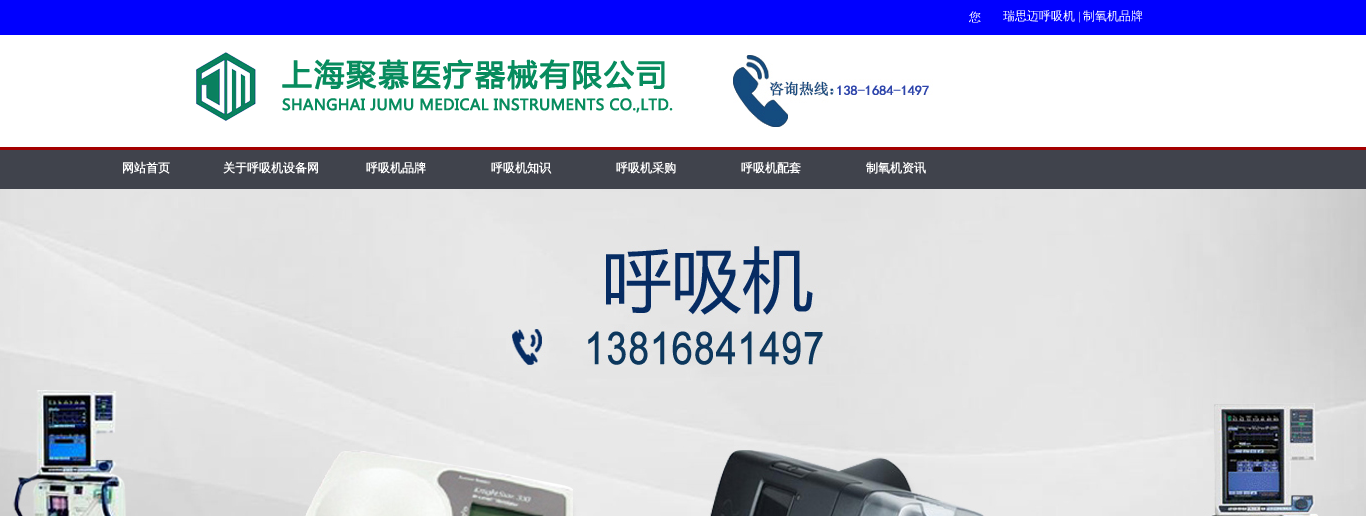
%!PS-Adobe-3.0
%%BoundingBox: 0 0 1366 516
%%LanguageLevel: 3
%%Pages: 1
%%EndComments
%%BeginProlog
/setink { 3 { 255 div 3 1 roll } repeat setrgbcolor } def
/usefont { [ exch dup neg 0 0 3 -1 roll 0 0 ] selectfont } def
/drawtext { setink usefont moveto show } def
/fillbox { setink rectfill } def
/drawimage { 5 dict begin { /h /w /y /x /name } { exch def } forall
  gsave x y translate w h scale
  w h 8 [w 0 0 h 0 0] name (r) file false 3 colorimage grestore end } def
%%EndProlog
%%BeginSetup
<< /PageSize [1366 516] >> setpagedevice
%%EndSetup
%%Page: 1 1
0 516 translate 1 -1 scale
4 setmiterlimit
0 0 1366 516 255 255 255 fillbox
0 0 1366 35 0 0 255 fillbox
(您) 969 21 /WenQuanYiZenHei-Medium 12 255 255 255 drawtext
(瑞思迈呼吸机) 1003 20 /WenQuanYiZenHei-Medium 12 255 255 255 drawtext
(|) 1078 20 /LiberationSerif-Regular 12 255 255 255 drawtext
(制氧机品牌) 1083 20 /WenQuanYiZenHei-Medium 12 255 255 255 drawtext
(assets/img1.rgb) 196 52 477 69 drawimage
(assets/img2.rgb) 733 55 200 72 drawimage
(assets/img3.rgb) 0 147 1366 42 drawimage
(网站首页) 122 172 /WenQuanYiZenHei-Bold 12 255 255 255 drawtext
(关于呼吸机设备网) 223 172 /WenQuanYiZenHei-Bold 12 255 255 255 drawtext
(呼吸机品牌) 366 172 /WenQuanYiZenHei-Bold 12 255 255 255 drawtext
(呼吸机知识) 491 172 /WenQuanYiZenHei-Bold 12 255 255 255 drawtext
(呼吸机采购) 616 172 /WenQuanYiZenHei-Bold 12 255 255 255 drawtext
(呼吸机配套) 741 172 /WenQuanYiZenHei-Bold 12 255 255 255 drawtext
(制氧机资讯) 866 172 /WenQuanYiZenHei-Bold 12 255 255 255 drawtext
(assets/img4.rgb) 0 189 1366 327 drawimage
showpage
%%EOF
